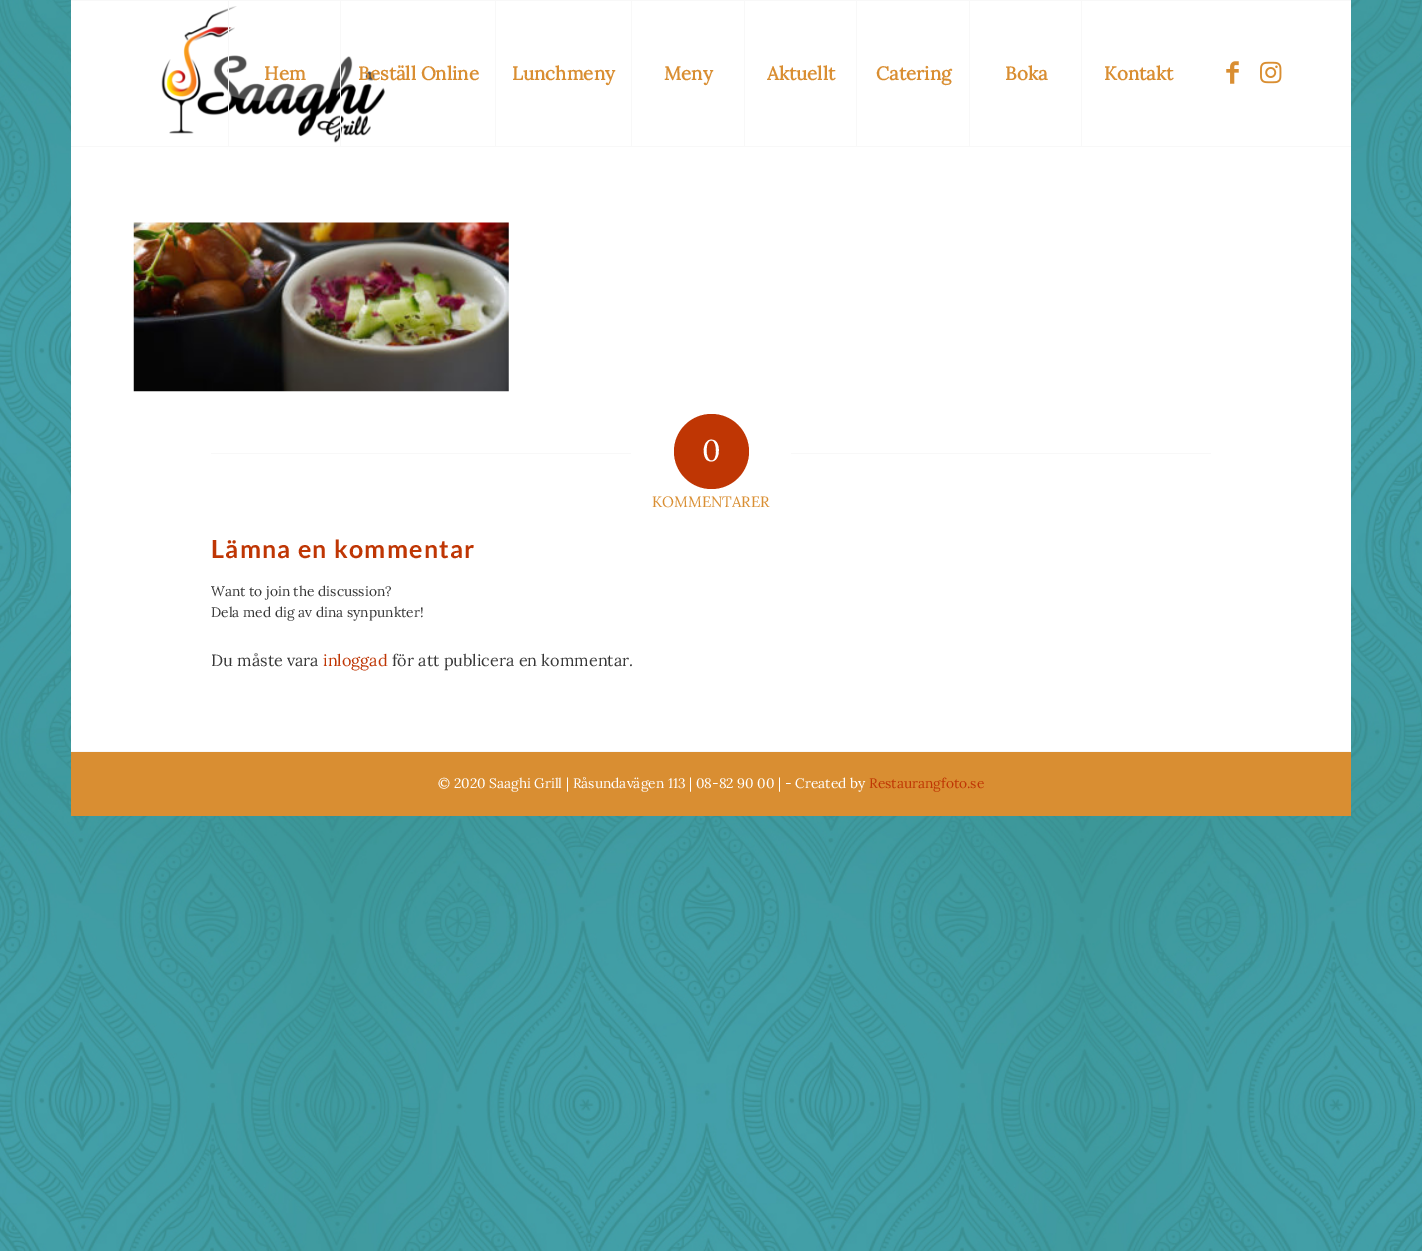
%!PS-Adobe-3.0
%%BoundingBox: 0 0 1422 1251
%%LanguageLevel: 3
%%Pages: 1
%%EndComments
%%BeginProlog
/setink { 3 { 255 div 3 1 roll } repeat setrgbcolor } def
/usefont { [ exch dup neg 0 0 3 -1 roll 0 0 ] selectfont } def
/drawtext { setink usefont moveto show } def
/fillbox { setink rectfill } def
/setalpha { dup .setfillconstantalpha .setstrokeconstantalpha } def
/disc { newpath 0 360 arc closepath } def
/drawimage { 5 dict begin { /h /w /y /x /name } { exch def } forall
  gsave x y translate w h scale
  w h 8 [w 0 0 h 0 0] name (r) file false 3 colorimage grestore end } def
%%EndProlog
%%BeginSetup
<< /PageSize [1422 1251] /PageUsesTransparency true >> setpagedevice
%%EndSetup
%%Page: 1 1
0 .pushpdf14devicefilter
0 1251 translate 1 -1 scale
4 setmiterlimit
0 0 1422 1251 255 255 255 fillbox
(assets/img1.rgb) 0 0 1422 1251 drawimage
71 0 1280 1 248 248 248 fillbox
71 1 1280 750 255 255 255 fillbox
(assets/img2.rgb) 161 6 224 137 drawimage
71 145 1280 2 248 248 248 fillbox
0.95 setalpha
71 145 1280 1 255 255 255 fillbox
1 setalpha
228 1 1 145 248 248 248 fillbox
(Hem) 264 80 /Lora-Bold 18.75 217 142 50 drawtext
340 1 1 145 248 248 248 fillbox
(Beställ Online) 358 80 /Lora-Bold 18.75 217 142 50 drawtext
495 1 1 145 248 248 248 fillbox
(Lunchmeny) 512 80 /Lora-Bold 18.75 217 142 50 drawtext
631 1 1 145 248 248 248 fillbox
(Meny) 664 80 /Lora-Bold 18.75 217 142 50 drawtext
744 1 1 145 248 248 248 fillbox
(Aktuellt) 767 80 /Lora-Bold 18.75 217 142 50 drawtext
856 1 1 145 248 248 248 fillbox
(Catering) 876 80 /Lora-Bold 18.75 217 142 50 drawtext
969 1 1 145 248 248 248 fillbox
(Boka) 1005 80 /Lora-Bold 18.75 217 142 50 drawtext
1081 1 1 145 248 248 248 fillbox
(Kontakt) 1104 80 /Lora-Bold 18.75 217 142 50 drawtext
(assets/img3.rgb) 1226 61 13 23 drawimage
(assets/img4.rgb) 1260 61 22 23 drawimage
(assets/img5.rgb) 133 222 376 170 drawimage
211 453 420 1 248 248 248 fillbox
191 54 4 setink
711.5 451.5 37.5 disc fill
(0) 702 461 /Lora-Regular 30 255 255 255 drawtext
791 453 420 1 248 248 248 fillbox
(KOMMENTARER) 652 507 /Lora-Regular 15 217 142 50 drawtext
/Lato-Bold 25 usefont
191 54 4 setink
211 558 moveto 1.25 0 (Lämna en kommentar) ashow
(Want to join the discussion?) 211 596 /Lora-Regular 13.75 56 56 56 drawtext
(Dela med dig av dina synpunkter!) 211 617 /Lora-Regular 13.75 56 56 56 drawtext
(Du måste vara) 211 666 /Lora-Regular 16.25 56 56 56 drawtext
(inloggad) 323 666 /Lora-Regular 16.25 191 54 4 drawtext
(för att publicera en kommentar.) 392 666 /Lora-Regular 16.25 56 56 56 drawtext
71 752 1280 64 217 142 50 fillbox
71 751 1280 1 248 248 248 fillbox
(© 2020 Saaghi Grill | Råsundavägen 113 | 08-82 90 00 | - Created by) 438 788 /Lora-Regular 13.75 255 255 255 drawtext
(Restaurangfoto.se) 869 788 /Lora-Regular 13.75 191 54 4 drawtext
.poppdf14devicefilter showpage
%%EOF
